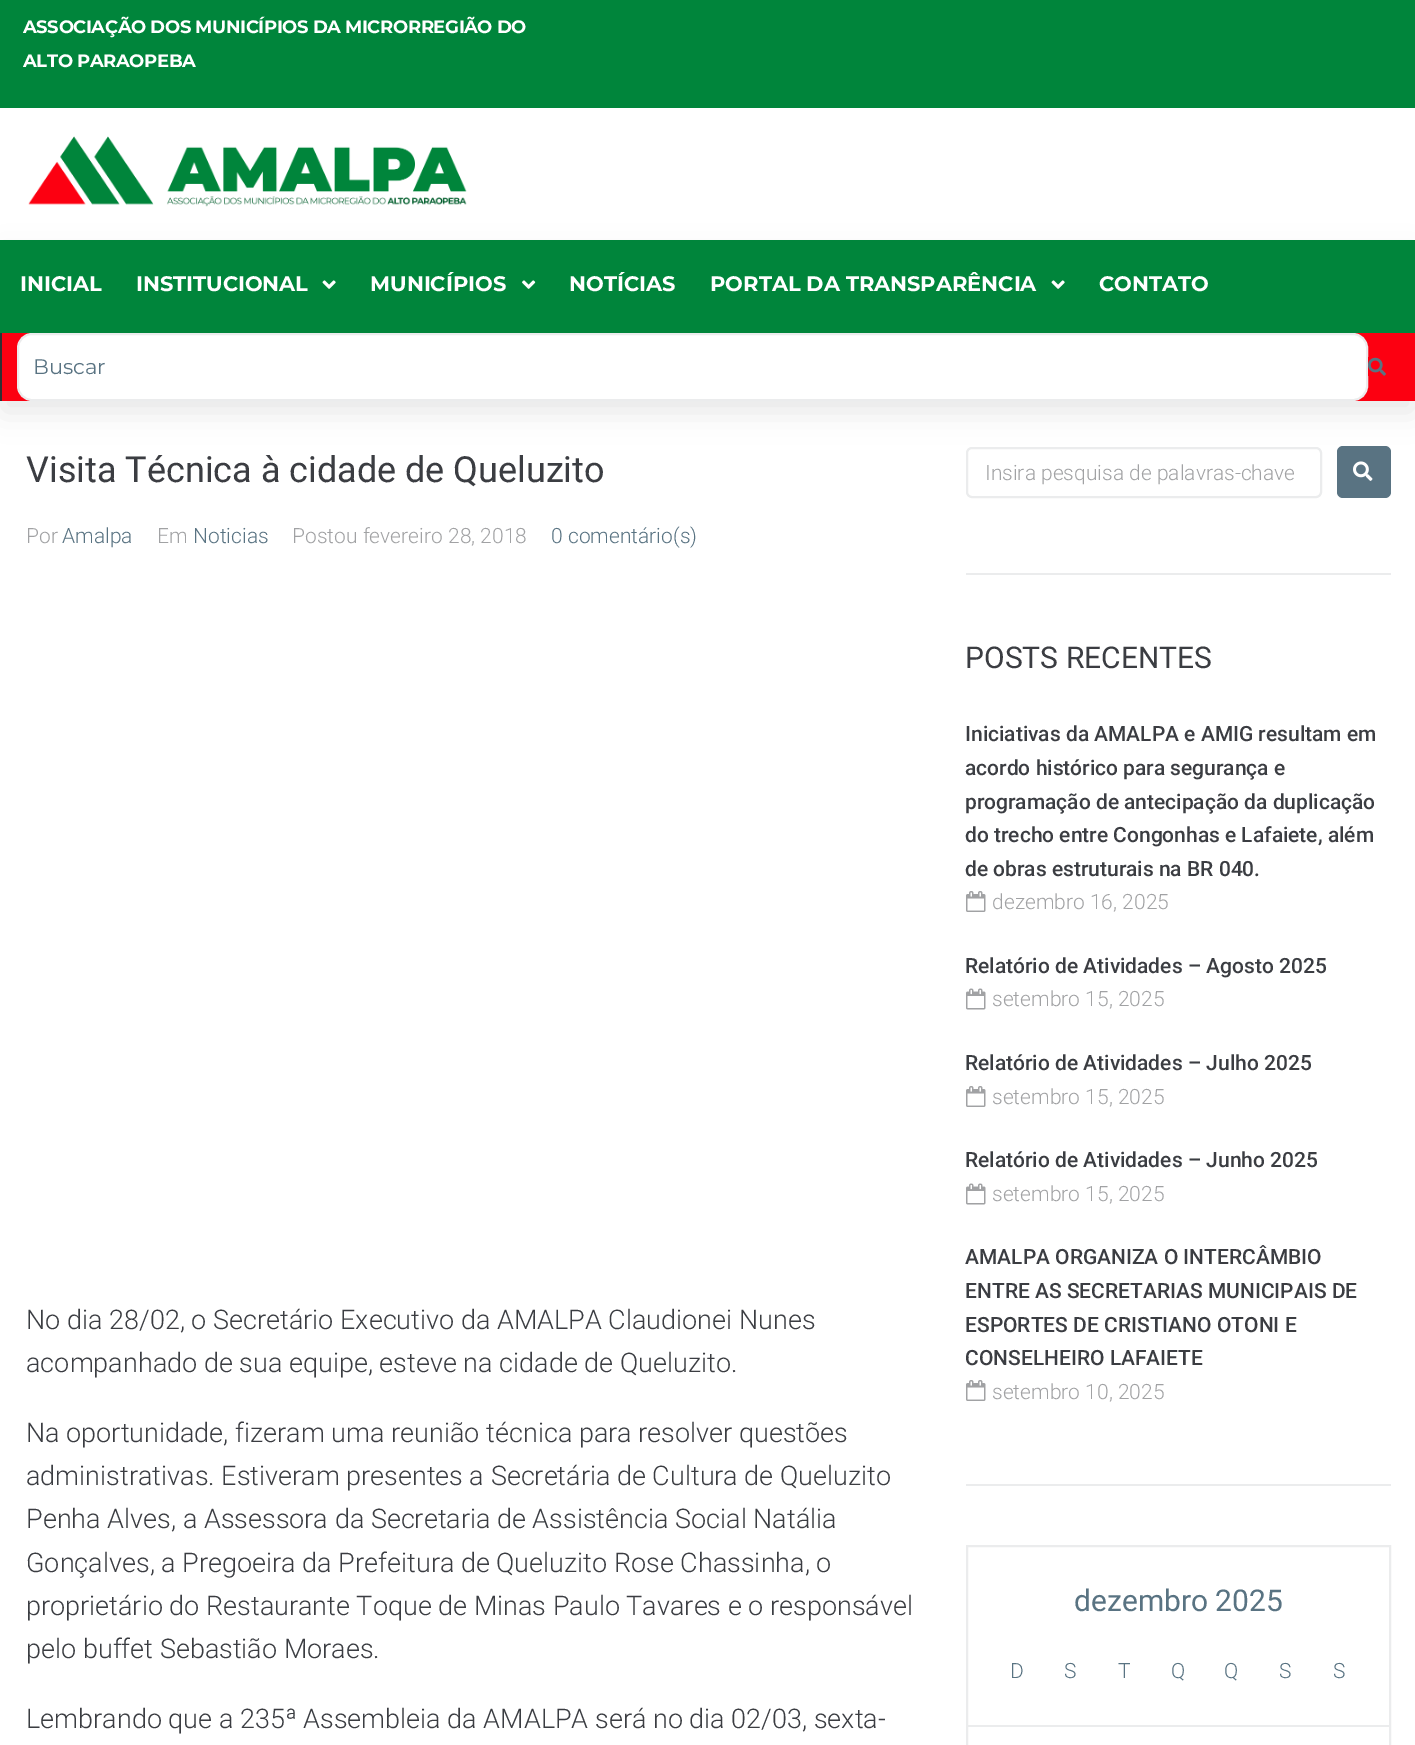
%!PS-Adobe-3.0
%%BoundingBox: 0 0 1415 1745
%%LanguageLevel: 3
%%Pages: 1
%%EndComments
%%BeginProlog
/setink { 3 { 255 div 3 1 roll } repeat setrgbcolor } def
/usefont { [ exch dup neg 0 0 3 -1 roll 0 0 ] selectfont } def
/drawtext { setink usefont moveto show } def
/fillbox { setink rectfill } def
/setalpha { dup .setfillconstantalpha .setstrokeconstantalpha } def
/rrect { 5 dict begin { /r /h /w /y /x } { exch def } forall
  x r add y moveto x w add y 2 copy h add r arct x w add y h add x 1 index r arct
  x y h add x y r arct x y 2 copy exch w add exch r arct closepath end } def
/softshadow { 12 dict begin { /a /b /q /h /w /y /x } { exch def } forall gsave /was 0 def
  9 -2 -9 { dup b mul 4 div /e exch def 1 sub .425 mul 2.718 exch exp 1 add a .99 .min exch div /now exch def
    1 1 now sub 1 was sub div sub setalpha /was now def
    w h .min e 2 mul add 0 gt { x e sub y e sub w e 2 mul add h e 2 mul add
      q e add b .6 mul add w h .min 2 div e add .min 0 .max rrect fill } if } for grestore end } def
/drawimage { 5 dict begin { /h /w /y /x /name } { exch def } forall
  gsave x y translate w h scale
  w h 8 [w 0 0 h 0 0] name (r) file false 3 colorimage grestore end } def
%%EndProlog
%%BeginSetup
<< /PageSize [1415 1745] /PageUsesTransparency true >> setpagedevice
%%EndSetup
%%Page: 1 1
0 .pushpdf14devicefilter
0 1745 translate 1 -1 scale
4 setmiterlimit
0 0 1415 1745 255 255 255 fillbox
0 0 1415 108 0 133 59 fillbox
/Montserrat-Bold 18 usefont
255 255 255 setink
23 33 moveto -0.4 0 (ASSOCIAÇÃO DOS MUNICÍPIOS DA MICRORREGIÃO DO) ashow
23 67 moveto -0.4 0 (ALTO PARAOPEBA) ashow
(assets/img1.rgb) 28 136 439 71 drawimage
0 0 0 setink
3 257 1410 154 0 15 0.1 softshadow
0 240 1415 93 0 133 59 fillbox
(INICIAL) 20 291 /Montserrat-Bold 21 255 255 255 drawtext
(INSTITUCIONAL) 136 291 /Montserrat-Bold 21 255 255 255 drawtext
(assets/img2.rgb) 322 280 14 9 drawimage
(MUNICÍPIOS) 370 291 /Montserrat-Bold 21 255 255 255 drawtext
(assets/img3.rgb) 522 280 14 9 drawimage
(NOTÍCIAS) 569 291 /Montserrat-Bold 21 255 255 255 drawtext
(PORTAL DA TRANSPARÊNCIA) 710 291 /Montserrat-Bold 21 255 255 255 drawtext
(assets/img2.rgb) 1051 280 14 9 drawimage
(CONTATO) 1099 291 /Montserrat-Bold 21 255 255 255 drawtext
2 333 1413 68 252 0 17 fillbox
0 333 2 68 47 48 51 fillbox
255 255 255 setink
18 334 1349 66 14 rrect gsave fill grestore
235 236 237 setink
2 setlinewidth
stroke
(Buscar) 33 374 /Montserrat-Regular 21 89 115 130 drawtext
(assets/img4.rgb) 1368 357 18 19 drawimage
(Visita Técnica à cidade de Queluzito) 26 482 /Roboto-Regular 36 59 61 66 drawtext
(Por) 26 543 /Roboto-Light 21 161 162 164 drawtext
(Amalpa) 62 543 /Roboto-Light 21 89 115 130 drawtext
(Em) 157 543 /Roboto-Light 21 161 162 164 drawtext
(Noticias) 193 543 /Roboto-Light 21 89 115 130 drawtext
(Postou fevereiro 28, 2018) 292 543 /Roboto-Light 21 161 162 164 drawtext
(0 comentário\(s\)) 551 543 /Roboto-Light 21 89 115 130 drawtext
(No dia 28/02, o Secretário Executivo da AMALPA Claudionei Nunes) 26 1329 /Roboto-Light 27 59 61 66 drawtext
(acompanhado de sua equipe, esteve na cidade de Queluzito.) 26 1372 /Roboto-Light 27 59 61 66 drawtext
(Na oportunidade, fizeram uma reunião técnica para resolver questões) 26 1442 /Roboto-Light 27 59 61 66 drawtext
(administrativas. Estiveram presentes a Secretária de Cultura de Queluzito) 26 1485 /Roboto-Light 27 59 61 66 drawtext
(Penha Alves, a Assessora da Secretaria de Assistência Social Natália) 26 1528 /Roboto-Light 27 59 61 66 drawtext
(Gonçalves, a Pregoeira da Prefeitura de Queluzito Rose Chassinha, o) 26 1572 /Roboto-Light 27 59 61 66 drawtext
(proprietário do Restaurante Toque de Minas Paulo Tavares e o responsável) 26 1615 /Roboto-Light 27 59 61 66 drawtext
(pelo buffet Sebastião Moraes.) 26 1658 /Roboto-Light 27 59 61 66 drawtext
(Lembrando que a 235ª Assembleia da AMALPA será no dia 02/03, sexta-) 26 1728 /Roboto-Light 27 59 61 66 drawtext
235 236 237 setink
967 448 354 49 5 rrect stroke
(Insira pesquisa de palavras-chave) 985 480 /Roboto-Light 21 161 162 164 drawtext
89 115 130 setink
1337 446 54 52 6 rrect fill
(assets/img5.rgb) 1353 461 20 20 drawimage
966 573 425 2 235 236 237 fillbox
(POSTS RECENTES) 965 668 /Roboto-Regular 30 59 61 66 drawtext
(Iniciativas da AMALPA e AMIG resultam em) 965 741 /Roboto-Medium 21 59 61 66 drawtext
(acordo histórico para segurança e) 965 775 /Roboto-Medium 21 59 61 66 drawtext
(programação de antecipação da duplicação) 965 809 /Roboto-Medium 21 59 61 66 drawtext
(do trecho entre Congonhas e Lafaiete, além) 965 842 /Roboto-Medium 21 59 61 66 drawtext
(de obras estruturais na BR 040.) 965 876 /Roboto-Medium 21 59 61 66 drawtext
(assets/img6.rgb) 966 891 20 21 drawimage
(dezembro 16, 2025) 992 909 /Roboto-Light 21 161 162 164 drawtext
(Relatório de Atividades – Agosto 2025) 965 973 /Roboto-Medium 21 59 61 66 drawtext
(assets/img7.rgb) 966 988 20 22 drawimage
(setembro 15, 2025) 992 1006 /Roboto-Light 21 161 162 164 drawtext
(Relatório de Atividades – Julho 2025) 965 1070 /Roboto-Medium 21 59 61 66 drawtext
(assets/img6.rgb) 966 1086 20 21 drawimage
(setembro 15, 2025) 992 1104 /Roboto-Light 21 161 162 164 drawtext
(Relatório de Atividades – Junho 2025) 965 1167 /Roboto-Medium 21 59 61 66 drawtext
(assets/img7.rgb) 966 1183 20 22 drawimage
(setembro 15, 2025) 992 1201 /Roboto-Light 21 161 162 164 drawtext
(AMALPA ORGANIZA O INTERCÂMBIO) 965 1264 /Roboto-Medium 21 59 61 66 drawtext
(ENTRE AS SECRETARIAS MUNICIPAIS DE) 965 1298 /Roboto-Medium 21 59 61 66 drawtext
(ESPORTES DE CRISTIANO OTONI E) 965 1332 /Roboto-Medium 21 59 61 66 drawtext
(CONSELHEIRO LAFAIETE) 965 1365 /Roboto-Medium 21 59 61 66 drawtext
(assets/img6.rgb) 966 1380 20 21 drawimage
(setembro 10, 2025) 992 1399 /Roboto-Light 21 161 162 164 drawtext
966 1484 425 2 235 236 237 fillbox
967 1546 423 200 rectstroke
(dezembro 2025) 1074 1611 /Roboto-Regular 30 89 115 130 drawtext
(D) 1010 1678 /Roboto-Light 21 89 115 130 drawtext
(S) 1064 1678 /Roboto-Light 21 89 115 130 drawtext
(T) 1118 1678 /Roboto-Light 21 89 115 130 drawtext
(Q) 1171 1678 /Roboto-Light 21 89 115 130 drawtext
(Q) 1224 1678 /Roboto-Light 21 89 115 130 drawtext
(S) 1279 1678 /Roboto-Light 21 89 115 130 drawtext
(S) 1333 1678 /Roboto-Light 21 89 115 130 drawtext
968 1725 421 2 235 236 237 fillbox
.poppdf14devicefilter showpage
%%EOF
